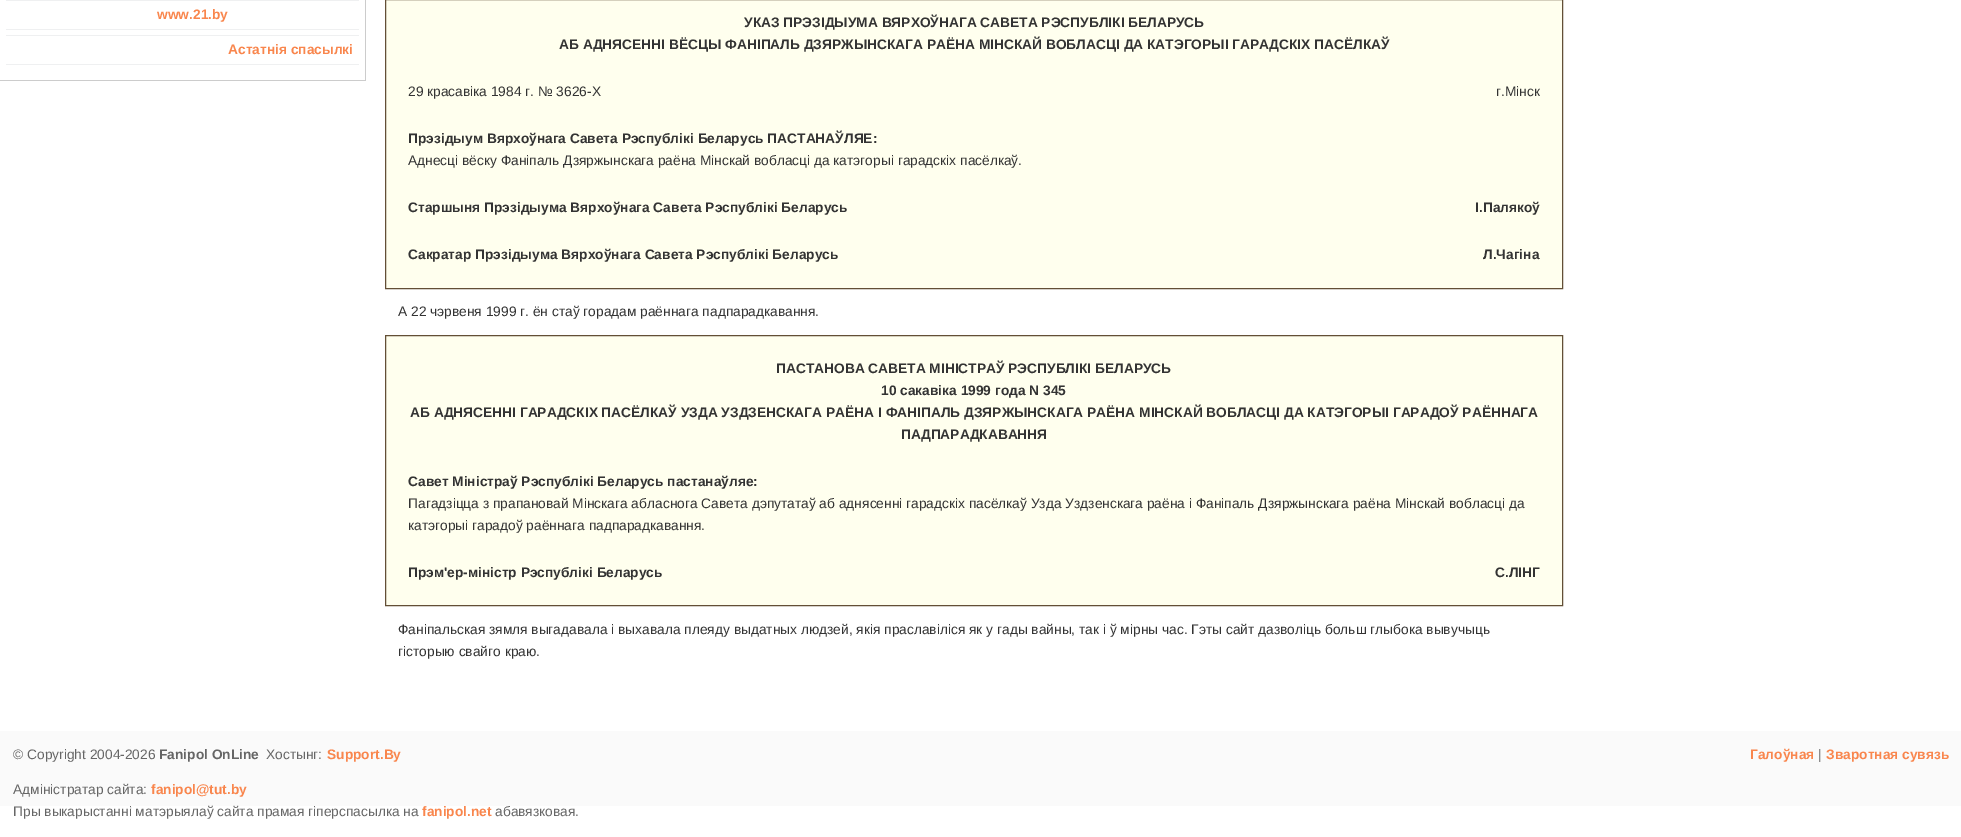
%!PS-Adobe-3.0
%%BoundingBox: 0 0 1961 837
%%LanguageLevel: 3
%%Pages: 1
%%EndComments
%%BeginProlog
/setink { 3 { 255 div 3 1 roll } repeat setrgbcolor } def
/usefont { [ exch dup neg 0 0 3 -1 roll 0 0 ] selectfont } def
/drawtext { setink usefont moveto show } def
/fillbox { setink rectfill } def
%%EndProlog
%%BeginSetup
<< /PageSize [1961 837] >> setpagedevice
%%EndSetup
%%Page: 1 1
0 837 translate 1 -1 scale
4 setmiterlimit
0 0 1961 837 255 255 255 fillbox
365 0 1 81 204 204 204 fillbox
0 80 366 1 204 204 204 fillbox
6 0 353 1 239 240 241 fillbox
6 29 353 1 239 240 241 fillbox
(www.21.by) 157 19 /LiberationSans-Bold 13.75 249 134 77 drawtext
6 35 353 1 239 240 241 fillbox
6 64 353 1 239 240 241 fillbox
(Астатнія спасылкі) 228 54 /LiberationSans-Bold 13.75 249 134 77 drawtext
255 255 238 setink
385.5 -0.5 moveto 1562.5 -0.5 lineto 1562.5 288.5 lineto 385.5 288.5 lineto closepath gsave fill grestore
99 79 54 setink
stroke
(УКАЗ ПРЭЗІДЫУМА ВЯРХОЎНАГА САВЕТА РЭСПУБЛІКІ БЕЛАРУСЬ) 744 27 /LiberationSans-Bold 13.75 51 51 51 drawtext
(АБ АДНЯСЕННI ВЁСЦЫ ФАНIПАЛЬ ДЗЯРЖЫНСКАГА РАЁНА МІНСКАЙ ВОБЛАСЦІ ДА КАТЭГОРЫІ ГАРАДСКIХ ПАСЁЛКАЎ) 559 49 /LiberationSans-Bold 13.75 51 51 51 drawtext
(29 красавіка 1984 г. № 3626-Х) 408 96 /LiberationSans-Regular 13.75 51 51 51 drawtext
(г.Мінск) 1496 96 /LiberationSans-Regular 13.75 51 51 51 drawtext
(Прэзідыум Вярхоўнага Савета Рэспублікі Беларусь ПАСТАНАЎЛЯЕ:) 408 143 /LiberationSans-Bold 13.75 51 51 51 drawtext
(Аднесці вёску Фаніпаль Дзяржынскага раёна Мінскай вобласці да катэгорыі гарадскіх пасёлкаў.) 408 165 /LiberationSans-Regular 13.75 51 51 51 drawtext
(Старшыня Прэзідыума Вярхоўнага Савета Рэспублікі Беларусь) 408 212 /LiberationSans-Bold 13.75 51 51 51 drawtext
(І.Палякоў) 1475 212 /LiberationSans-Bold 13.75 51 51 51 drawtext
(Сакратар Прэзідыума Вярхоўнага Савета Рэспублікі Беларусь) 408 259 /LiberationSans-Bold 13.75 51 51 51 drawtext
(Л.Чагіна) 1483 259 /LiberationSans-Bold 13.75 51 51 51 drawtext
(А 22 чэрвеня 1999 г. ён стаў горадам раённага падпарадкавання.) 398 316 /LiberationSans-Regular 13.75 51 51 51 drawtext
255 255 238 setink
385.5 335.5 moveto 1562.5 335.5 lineto 1562.5 605.5 lineto 385.5 605.5 lineto closepath gsave fill grestore
99 79 54 setink
stroke
(ПАСТАНОВА САВЕТА МІНІСТРАЎ РЭСПУБЛІКІ БЕЛАРУСЬ) 776 373 /LiberationSans-Bold 13.75 51 51 51 drawtext
(10 cакавіка 1999 года N 345) 881 395 /LiberationSans-Bold 13.75 51 51 51 drawtext
(АБ АДНЯСЕННI ГАРАДСКIХ ПАСЁЛКАЎ УЗДА УЗДЗЕНСКАГА РАЁНА I ФАНIПАЛЬ ДЗЯРЖЫНСКАГА РАЁНА МІНСКАЙ ВОБЛАСЦІ ДА КАТЭГОРЫІ ГАРАДОЎ РАЁННАГА) 410 417 /LiberationSans-Bold 13.75 51 51 51 drawtext
(ПАДПАРАДКАВАННЯ) 901 439 /LiberationSans-Bold 13.75 51 51 51 drawtext
(Савет Міністраў Рэспублікі Беларусь пастанаўляе:) 408 486 /LiberationSans-Bold 13.75 51 51 51 drawtext
(Пагадзіцца з прапановай Мінскага абласнога Савета дэпутатаў аб аднясенні гарадскіх пасёлкаў Узда Уздзенскага раёна і Фаніпаль Дзяржынскага раёна Мінскай вобласці да) 408 508 /LiberationSans-Regular 13.75 51 51 51 drawtext
(катэгорыі гарадоў раённага падпарадкавання.) 408 530 /LiberationSans-Regular 13.75 51 51 51 drawtext
(Прэм'ер-міністр Рэспублікі Беларусь) 408 577 /LiberationSans-Bold 13.75 51 51 51 drawtext
(С.ЛIНГ) 1495 577 /LiberationSans-Bold 13.75 51 51 51 drawtext
(Фаніпальская зямля выгадавала і выхавала плеяду выдатных людзей, якія праславіліся як у гады вайны, так і ў мірны час. Гэты сайт дазволіць больш глыбока вывучыць) 398 634 /LiberationSans-Regular 13.75 51 51 51 drawtext
(гісторыю свайго краю.) 398 656 /LiberationSans-Regular 13.75 51 51 51 drawtext
0 731 1961 75 250 250 250 fillbox
(© Copyright 2004-2026) 13 759 /LiberationSans-Regular 13.75 102 102 102 drawtext
(Fanipol OnLine) 159 759 /LiberationSans-Bold 13.75 102 102 102 drawtext
(Хостынг:) 266 759 /LiberationSans-Regular 13.75 102 102 102 drawtext
(Support.By) 327 759 /LiberationSans-Bold 13.75 249 134 77 drawtext
(Галоўная) 1750 759 /LiberationSans-Bold 13.75 249 134 77 drawtext
(|) 1818 759 /LiberationSans-Regular 13.75 102 102 102 drawtext
(Зваротная сувязь) 1826 759 /LiberationSans-Bold 13.75 249 134 77 drawtext
(Адміністратар сайта:) 13 794 /LiberationSans-Regular 13.75 102 102 102 drawtext
(fanipol@tut.by) 151 794 /LiberationSans-Bold 13.75 249 134 77 drawtext
(Пры выкарыстанні матэрыялаў сайта прамая гіперспасылка на) 13 816 /LiberationSans-Regular 13.75 102 102 102 drawtext
(fanipol.net) 422 816 /LiberationSans-Bold 13.75 249 134 77 drawtext
(абавязковая.) 495 816 /LiberationSans-Regular 13.75 102 102 102 drawtext
showpage
%%EOF
